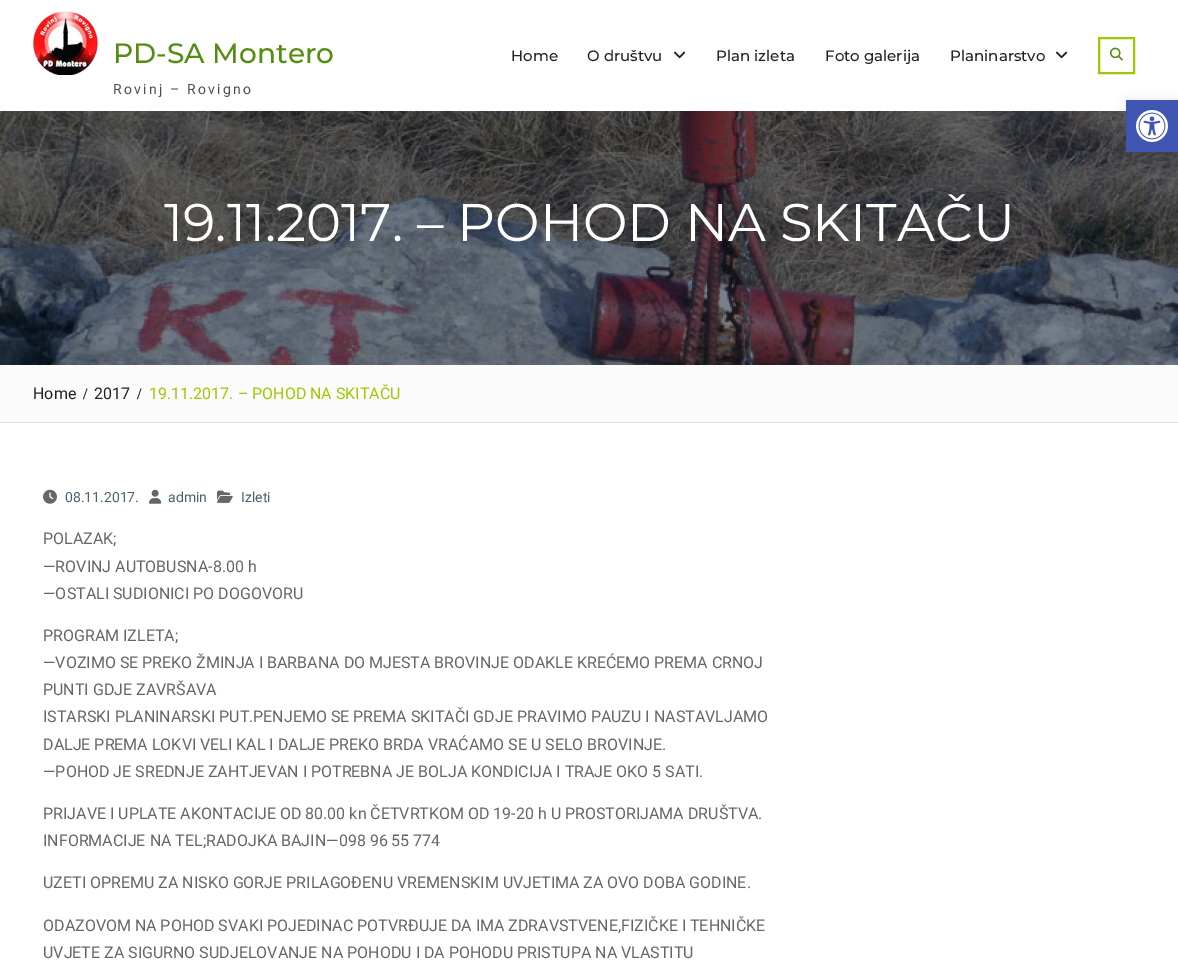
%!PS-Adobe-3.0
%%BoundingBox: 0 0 1178 963
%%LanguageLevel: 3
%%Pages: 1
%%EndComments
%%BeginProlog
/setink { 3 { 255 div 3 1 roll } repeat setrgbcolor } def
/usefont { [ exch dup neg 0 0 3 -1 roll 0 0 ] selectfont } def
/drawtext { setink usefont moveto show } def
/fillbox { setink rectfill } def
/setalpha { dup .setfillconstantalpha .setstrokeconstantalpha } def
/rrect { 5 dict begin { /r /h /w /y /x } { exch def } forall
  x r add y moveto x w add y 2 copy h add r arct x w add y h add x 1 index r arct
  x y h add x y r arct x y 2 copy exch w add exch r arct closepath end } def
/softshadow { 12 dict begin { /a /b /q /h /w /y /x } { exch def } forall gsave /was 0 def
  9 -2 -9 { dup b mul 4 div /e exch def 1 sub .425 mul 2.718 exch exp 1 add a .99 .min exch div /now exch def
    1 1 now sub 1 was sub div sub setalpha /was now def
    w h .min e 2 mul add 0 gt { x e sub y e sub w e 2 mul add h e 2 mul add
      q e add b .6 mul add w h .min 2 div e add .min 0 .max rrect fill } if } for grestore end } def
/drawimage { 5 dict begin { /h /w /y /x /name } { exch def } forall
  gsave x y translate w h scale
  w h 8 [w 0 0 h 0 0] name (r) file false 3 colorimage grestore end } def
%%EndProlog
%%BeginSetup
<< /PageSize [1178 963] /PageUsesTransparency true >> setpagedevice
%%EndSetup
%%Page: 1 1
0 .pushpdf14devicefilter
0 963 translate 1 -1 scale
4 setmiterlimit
0 0 1178 963 255 255 255 fillbox
(assets/img1.rgb) 33 11 65 64 drawimage
(PD-SA Montero) 113 63 /Montserrat-Medium 28 86 140 17 drawtext
/Roboto-Regular 14 usefont
77 77 77 setink
113 94 moveto 2.25 0 (Rovinj – Rovigno) ashow
(Home) 511 61 /Montserrat-Medium 15 34 34 34 drawtext
(O društvu) 587 61 /Montserrat-Medium 15 34 34 34 drawtext
(assets/img2.rgb) 674 51 12 8 drawimage
(Plan izleta) 716 61 /Montserrat-Medium 15 34 34 34 drawtext
(Foto galerija) 825 61 /Montserrat-Medium 15 34 34 34 drawtext
(Planinarstvo) 950 61 /Montserrat-Medium 15 34 34 34 drawtext
(assets/img2.rgb) 1056 51 12 8 drawimage
156 201 0 setink
2 setlinewidth
1099 38 35 35 rectstroke
(assets/img3.rgb) 1110 47 13 14 drawimage
(assets/img4.rgb) 0 111 1178 254 drawimage
(19.11.2017. – POHOD NA SKITAČU) 164 241 /Montserrat-Regular 53 255 255 255 drawtext
0 365 1178 57 251 251 251 fillbox
0 422 1178 1 221 221 221 fillbox
(Home) 33 399 /Roboto-Regular 16 34 34 34 drawtext
(/) 83 399 /LiberationSerif-Bold 16 34 34 34 drawtext
(2017) 94 399 /Roboto-Regular 16 34 34 34 drawtext
(/) 137 399 /LiberationSerif-Bold 16 34 34 34 drawtext
(19.11.2017. – POHOD NA SKITAČU) 149 399 /Roboto-Regular 16 156 201 0 drawtext
(assets/img5.rgb) 43 489 14 15 drawimage
(08.11.2017.) 65 502 /Roboto-Regular 14 73 97 107 drawtext
(assets/img6.rgb) 149 489 13 15 drawimage
(admin) 168 502 /Roboto-Regular 14 73 97 107 drawtext
(assets/img7.rgb) 217 490 16 13 drawimage
(Izleti) 241 502 /Roboto-Regular 14 73 97 107 drawtext
(POLAZAK;) 43 544 /Roboto-Regular 16 102 102 102 drawtext
(—ROVINJ AUTOBUSNA-8.00 h) 43 572 /Roboto-Regular 16 102 102 102 drawtext
(—OSTALI SUDIONICI PO DOGOVORU) 43 599 /Roboto-Regular 16 102 102 102 drawtext
(PROGRAM IZLETA;) 43 641 /Roboto-Regular 16 102 102 102 drawtext
(—VOZIMO SE PREKO ŽMINJA I BARBANA DO MJESTA BROVINJE ODAKLE KREĆEMO PREMA CRNOJ) 43 668 /Roboto-Regular 16 102 102 102 drawtext
(PUNTI GDJE ZAVRŠAVA) 43 695 /Roboto-Regular 16 102 102 102 drawtext
(ISTARSKI PLANINARSKI PUT.PENJEMO SE PREMA SKITAČI GDJE PRAVIMO PAUZU I NASTAVLJAMO) 43 722 /Roboto-Regular 16 102 102 102 drawtext
(DALJE PREMA LOKVI VELI KAL I DALJE PREKO BRDA VRAĆAMO SE U SELO BROVINJE.) 43 750 /Roboto-Regular 16 102 102 102 drawtext
(—POHOD JE SREDNJE ZAHTJEVAN I POTREBNA JE BOLJA KONDICIJA I TRAJE OKO 5 SATI.) 43 777 /Roboto-Regular 16 102 102 102 drawtext
(PRIJAVE I UPLATE AKONTACIJE OD 80.00 kn ČETVRTKOM OD 19-20 h U PROSTORIJAMA DRUŠTVA.) 43 819 /Roboto-Regular 16 102 102 102 drawtext
(INFORMACIJE NA TEL;RADOJKA BAJIN—098 96 55 774) 43 846 /Roboto-Regular 16 102 102 102 drawtext
(UZETI OPREMU ZA NISKO GORJE PRILAGOĐENU VREMENSKIM UVJETIMA ZA OVO DOBA GODINE.) 43 888 /Roboto-Regular 16 102 102 102 drawtext
(ODAZOVOM NA POHOD SVAKI POJEDINAC POTVRĐUJE DA IMA ZDRAVSTVENE,FIZIČKE I TEHNIČKE) 43 931 /Roboto-Regular 16 102 102 102 drawtext
(UVJETE ZA SIGURNO SUDJELOVANJE NA POHODU I DA POHODU PRISTUPA NA VLASTITU) 43 958 /Roboto-Regular 16 102 102 102 drawtext
0 0 0 setink
1126 100 52 52 0 5 0.1 softshadow
1126 100 52 52 64 84 178 fillbox
(assets/img8.rgb) 1136 110 32 32 drawimage
.poppdf14devicefilter showpage
%%EOF
